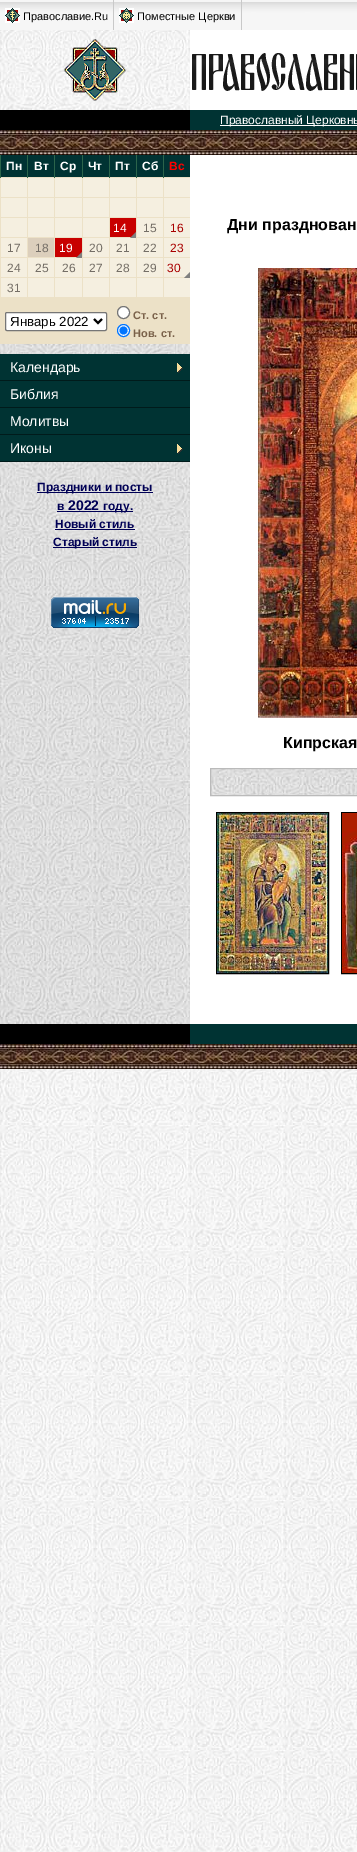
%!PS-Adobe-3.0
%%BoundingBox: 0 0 357 1852
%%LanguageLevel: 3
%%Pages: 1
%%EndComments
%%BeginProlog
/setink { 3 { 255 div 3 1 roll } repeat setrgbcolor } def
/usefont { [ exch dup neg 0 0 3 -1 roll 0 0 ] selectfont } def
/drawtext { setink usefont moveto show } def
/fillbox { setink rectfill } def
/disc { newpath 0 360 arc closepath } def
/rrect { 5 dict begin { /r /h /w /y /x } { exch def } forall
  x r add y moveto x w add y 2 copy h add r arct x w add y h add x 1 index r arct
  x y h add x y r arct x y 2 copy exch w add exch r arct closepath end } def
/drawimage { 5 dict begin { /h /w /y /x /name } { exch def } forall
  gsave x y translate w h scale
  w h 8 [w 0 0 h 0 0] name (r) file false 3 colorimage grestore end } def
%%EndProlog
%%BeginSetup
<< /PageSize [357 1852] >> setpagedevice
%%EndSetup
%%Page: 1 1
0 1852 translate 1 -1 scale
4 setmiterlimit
0 0 357 1852 255 255 255 fillbox
(assets/img1.rgb) 0 30 357 1822 drawimage
(assets/img2.rgb) 0 0 357 30 drawimage
113 0 1 30 201 201 201 fillbox
(assets/img3.rgb) 5 8 15 15 drawimage
(Православие.Ru) 23 20 /LiberationSans-Regular 11 0 0 0 drawtext
241 0 1 30 201 201 201 fillbox
(assets/img4.rgb) 119 8 15 15 drawimage
(Поместные Церкви) 137 20 /LiberationSans-Regular 11 0 0 0 drawtext
(assets/img5.rgb) 64 39 62 62 drawimage
190 30 167 80 255 255 255 fillbox
(assets/img6.rgb) 192 53 165 38 drawimage
0 110 190 20 0 0 0 fillbox
190 110 167 20 0 51 51 fillbox
220 125 137 1 255 255 255 fillbox
(Православный Церковны) 220 124 /LiberationSans-Regular 12 255 255 255 drawtext
(assets/img7.rgb) 0 130 357 25 drawimage
(assets/img8.rgb) 0 344 190 680 drawimage
1 155 26 22 0 51 51 fillbox
0 177 190 1 236 225 199 fillbox
0 155 1 23 43 100 75 fillbox
(Пн) 6 170 /LiberationSans-Bold 12 255 255 255 drawtext
28 155 26 22 0 51 51 fillbox
27 155 1 23 43 100 75 fillbox
(Вт) 34 170 /LiberationSans-Bold 12 255 255 255 drawtext
55 155 27 22 0 51 51 fillbox
54 155 1 23 43 100 75 fillbox
(Ср) 60 170 /LiberationSans-Bold 12 255 255 255 drawtext
83 155 26 22 0 51 51 fillbox
82 155 1 23 43 100 75 fillbox
(Чт) 88 170 /LiberationSans-Bold 12 255 255 255 drawtext
110 155 26 22 0 51 51 fillbox
109 155 1 23 43 100 75 fillbox
(Пт) 115 170 /LiberationSans-Bold 12 255 255 255 drawtext
137 155 26 22 0 51 51 fillbox
136 155 1 23 43 100 75 fillbox
(Сб) 142 170 /LiberationSans-Bold 12 255 255 255 drawtext
164 155 26 22 0 51 51 fillbox
163 155 1 23 43 100 75 fillbox
(Вс) 169 170 /LiberationSans-Bold 12 255 0 0 drawtext
1 178 26 19 245 239 224 fillbox
0 197 190 1 236 225 199 fillbox
0 178 1 20 236 225 199 fillbox
28 178 26 19 245 239 224 fillbox
27 178 1 20 236 225 199 fillbox
55 178 27 19 245 239 224 fillbox
54 178 1 20 236 225 199 fillbox
83 178 26 19 245 239 224 fillbox
82 178 1 20 236 225 199 fillbox
110 178 26 19 245 239 224 fillbox
109 178 1 20 236 225 199 fillbox
137 178 26 19 245 239 224 fillbox
136 178 1 20 236 225 199 fillbox
164 178 26 19 245 239 224 fillbox
163 178 1 20 236 225 199 fillbox
1 198 26 19 245 239 224 fillbox
0 217 190 1 236 225 199 fillbox
0 198 1 20 236 225 199 fillbox
28 198 26 19 245 239 224 fillbox
27 198 1 20 236 225 199 fillbox
55 198 27 19 245 239 224 fillbox
54 198 1 20 236 225 199 fillbox
83 198 26 19 245 239 224 fillbox
82 198 1 20 236 225 199 fillbox
110 198 26 19 245 239 224 fillbox
109 198 1 20 236 225 199 fillbox
137 198 26 19 245 239 224 fillbox
136 198 1 20 236 225 199 fillbox
164 198 26 19 245 239 224 fillbox
163 198 1 20 236 225 199 fillbox
1 218 26 19 245 239 224 fillbox
0 237 190 1 236 225 199 fillbox
0 218 1 20 236 225 199 fillbox
28 218 26 19 245 239 224 fillbox
27 218 1 20 236 225 199 fillbox
55 218 27 19 245 239 224 fillbox
54 218 1 20 236 225 199 fillbox
83 218 26 19 245 239 224 fillbox
82 218 1 20 236 225 199 fillbox
110 218 26 19 200 0 0 fillbox
109 218 1 20 236 225 199 fillbox
(14) 113 232 /LiberationSans-Regular 12 255 255 255 drawtext
0 257 190 1 236 225 199 fillbox
55 238 27 19 200 0 0 fillbox
83 238 26 19 245 239 224 fillbox
82 238 1 20 236 225 199 fillbox
(20) 89 252 /LiberationSans-Regular 12 116 110 102 drawtext
110 238 26 19 245 239 224 fillbox
109 238 1 20 236 225 199 fillbox
(21) 116 252 /LiberationSans-Regular 12 116 110 102 drawtext
128 128 128 setink
136 238 moveto 130 238 lineto 136 232 lineto closepath 82 258 moveto 76 258 lineto 82 252 lineto closepath fill
137 218 26 19 245 239 224 fillbox
136 218 1 20 236 225 199 fillbox
(15) 143 232 /LiberationSans-Regular 12 116 110 102 drawtext
164 218 26 19 245 239 224 fillbox
163 218 1 20 236 225 199 fillbox
(16) 170 232 /LiberationSans-Regular 12 169 0 0 drawtext
1 238 26 19 245 239 224 fillbox
0 238 1 20 236 225 199 fillbox
(17) 7 252 /LiberationSans-Regular 12 116 110 102 drawtext
28 238 26 19 220 207 188 fillbox
27 238 1 20 236 225 199 fillbox
(18) 35 252 /LiberationSans-Regular 12 116 110 102 drawtext
54 238 1 20 236 225 199 fillbox
(19) 59 252 /LiberationSans-Regular 12 255 255 255 drawtext
137 238 26 19 245 239 224 fillbox
136 238 1 20 236 225 199 fillbox
(22) 143 252 /LiberationSans-Regular 12 116 110 102 drawtext
164 238 26 19 245 239 224 fillbox
163 238 1 20 236 225 199 fillbox
(23) 170 252 /LiberationSans-Regular 12 169 0 0 drawtext
1 258 26 19 245 239 224 fillbox
0 277 190 1 236 225 199 fillbox
0 258 1 20 236 225 199 fillbox
(24) 7 272 /LiberationSans-Regular 12 116 110 102 drawtext
28 258 26 19 245 239 224 fillbox
27 258 1 20 236 225 199 fillbox
(25) 35 272 /LiberationSans-Regular 12 116 110 102 drawtext
55 258 27 19 245 239 224 fillbox
54 258 1 20 236 225 199 fillbox
(26) 62 272 /LiberationSans-Regular 12 116 110 102 drawtext
83 258 26 19 245 239 224 fillbox
82 258 1 20 236 225 199 fillbox
(27) 89 272 /LiberationSans-Regular 12 116 110 102 drawtext
110 258 26 19 245 239 224 fillbox
109 258 1 20 236 225 199 fillbox
(28) 116 272 /LiberationSans-Regular 12 116 110 102 drawtext
137 258 26 19 245 239 224 fillbox
136 258 1 20 236 225 199 fillbox
(29) 143 272 /LiberationSans-Regular 12 116 110 102 drawtext
164 258 26 19 245 239 224 fillbox
163 258 1 20 236 225 199 fillbox
(30) 167 272 /LiberationSans-Regular 12 169 0 0 drawtext
128 128 128 setink
190 278 moveto 184 278 lineto 190 272 lineto closepath fill
1 278 26 19 245 239 224 fillbox
0 297 190 47 236 225 199 fillbox
0 278 1 20 236 225 199 fillbox
(31) 7 292 /LiberationSans-Regular 12 116 110 102 drawtext
28 278 26 19 245 239 224 fillbox
27 278 1 20 236 225 199 fillbox
55 278 27 19 245 239 224 fillbox
54 278 1 20 236 225 199 fillbox
83 278 26 19 245 239 224 fillbox
82 278 1 20 236 225 199 fillbox
110 278 26 19 245 239 224 fillbox
109 278 1 20 236 225 199 fillbox
137 278 26 19 245 239 224 fillbox
136 278 1 20 236 225 199 fillbox
164 278 26 19 245 239 224 fillbox
163 278 1 20 236 225 199 fillbox
255 255 255 setink
5.5 312.5 101 18 1.5 rrect gsave fill grestore
118 118 118 setink
stroke
0 0 0 setink
2 setlinewidth
94 319 moveto 98 323 lineto 102 319 lineto stroke
(Январь 2022) 10 326 /LiberationSans-Regular 13.25 0 0 0 drawtext
255 255 255 setink
123.5 312.5 6 disc gsave fill grestore
118 118 118 setink
1 setlinewidth
stroke
(Ст. ст.) 133 319 /LiberationSans-Bold 11 122 97 74 drawtext
255 255 255 setink
123.5 330.5 6 disc gsave fill grestore
0 117 255 setink
stroke
123.5 330.5 4 disc fill
(Нов. ст.) 133 337 /LiberationSans-Bold 11 122 97 74 drawtext
0 354 190 26 0 51 51 fillbox
(assets/img9.rgb) 177 363 6 10 drawimage
0 380 190 1 0 27 27 fillbox
(Календарь) 10 372 /LiberationSans-Regular 14 255 255 255 drawtext
0 381 190 26 0 51 51 fillbox
0 407 190 1 0 27 27 fillbox
(Библия) 10 399 /LiberationSans-Regular 14 255 255 255 drawtext
0 408 190 26 0 51 51 fillbox
0 434 190 1 0 27 27 fillbox
(Молитвы) 10 426 /LiberationSans-Regular 14 255 255 255 drawtext
0 435 190 26 0 51 51 fillbox
(assets/img9.rgb) 177 444 6 10 drawimage
0 461 190 1 0 27 27 fillbox
(Иконы) 10 453 /LiberationSans-Regular 14 255 255 255 drawtext
37 492 116 1 0 0 85 fillbox
(Праздники и посты) 37 491 /LiberationSans-Bold 12 0 0 85 drawtext
(в) 57 510 /LiberationSans-Bold 12 0 0 85 drawtext
(2022) 68 510 /LiberationSans-Bold 14 0 0 85 drawtext
57 511 76 1 0 0 85 fillbox
(году.) 103 510 /LiberationSans-Bold 12 0 0 85 drawtext
(Новый стиль) 55 528 /LiberationSans-Bold 12 0 0 85 drawtext
55 529 80 1 0 0 85 fillbox
53 547 84 1 0 0 85 fillbox
(Старый стиль) 53 546 /LiberationSans-Bold 12 0 0 85 drawtext
(assets/img10.rgb) 51 597 88 31 drawimage
190 155 167 869 255 255 255 fillbox
(Дни празднован) 227 230 /LiberationSans-Bold 16 0 0 0 drawtext
(assets/img11.rgb) 258 268 99 450 drawimage
(Кипрская) 283 748 /LiberationSans-Bold 16 0 0 0 drawtext
(assets/img12.rgb) 211 769 146 26 drawimage
186 186 186 setink
210.5 768.5 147 27 rectstroke
0 0 0 setink
216.5 812.5 112 161 rectstroke
(assets/img13.rgb) 217 813 111 160 drawimage
341.5 812.5 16 161 rectstroke
(assets/img14.rgb) 342 813 15 160 drawimage
0 1024 190 20 0 0 0 fillbox
190 1024 167 20 0 51 51 fillbox
(assets/img7.rgb) 0 1044 357 25 drawimage
showpage
%%EOF
